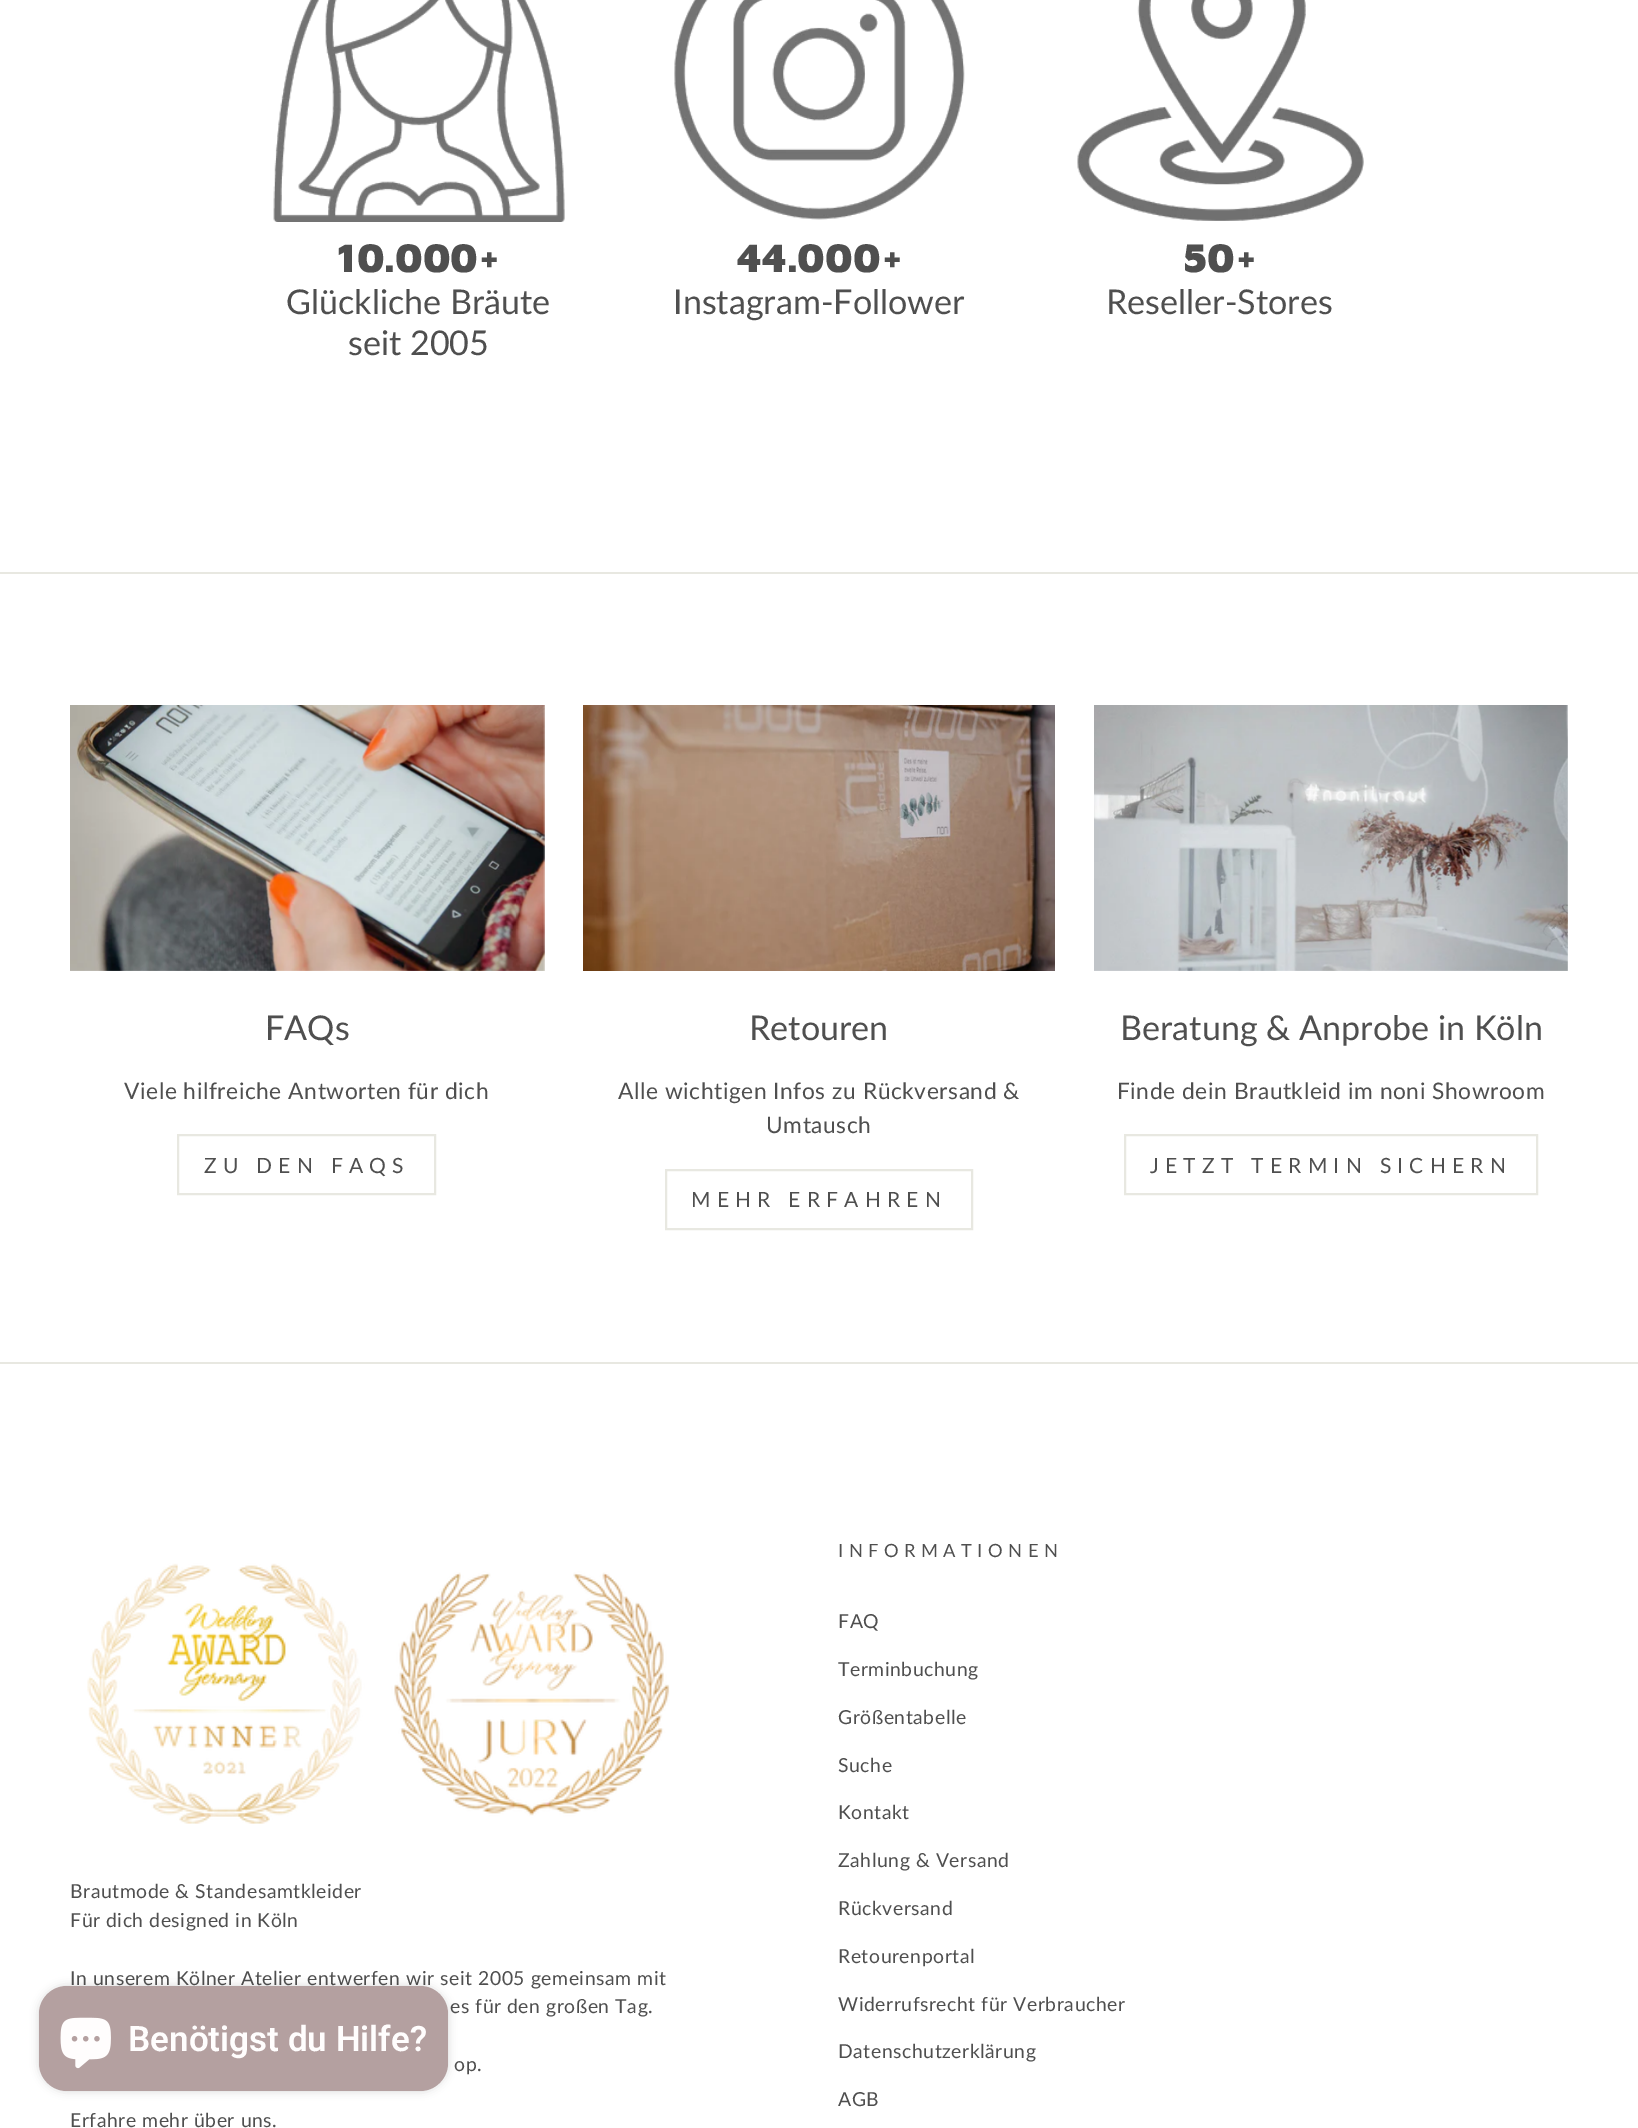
%!PS-Adobe-3.0
%%BoundingBox: 0 0 1638 2128
%%LanguageLevel: 3
%%Pages: 1
%%EndComments
%%BeginProlog
/setink { 3 { 255 div 3 1 roll } repeat setrgbcolor } def
/usefont { [ exch dup neg 0 0 3 -1 roll 0 0 ] selectfont } def
/drawtext { setink usefont moveto show } def
/fillbox { setink rectfill } def
/setalpha { dup .setfillconstantalpha .setstrokeconstantalpha } def
/rrect { 5 dict begin { /r /h /w /y /x } { exch def } forall
  x r add y moveto x w add y 2 copy h add r arct x w add y h add x 1 index r arct
  x y h add x y r arct x y 2 copy exch w add exch r arct closepath end } def
/softshadow { 12 dict begin { /a /b /q /h /w /y /x } { exch def } forall gsave /was 0 def
  9 -2 -9 { dup b mul 4 div /e exch def 1 sub .425 mul 2.718 exch exp 1 add a .99 .min exch div /now exch def
    1 1 now sub 1 was sub div sub setalpha /was now def
    w h .min e 2 mul add 0 gt { x e sub y e sub w e 2 mul add h e 2 mul add
      q e add b .6 mul add w h .min 2 div e add .min 0 .max rrect fill } if } for grestore end } def
/drawimage { 5 dict begin { /h /w /y /x /name } { exch def } forall
  gsave x y translate w h scale
  w h 8 [w 0 0 h 0 0] name (r) file false 3 colorimage grestore end } def
%%EndProlog
%%BeginSetup
<< /PageSize [1638 2128] /PageUsesTransparency true >> setpagedevice
%%EndSetup
%%Page: 1 1
0 .pushpdf14devicefilter
0 2128 translate 1 -1 scale
4 setmiterlimit
0 0 1638 2128 255 255 255 fillbox
(assets/img1.rgb) 273 0 292 222 drawimage
(10.000+) 337 272 /MavenPro-Black 41 79 79 79 drawtext
(Glückliche Bräute) 286 314 /Lato-Regular 34.1 79 79 79 drawtext
(seit 2005) 348 355 /Lato-Regular 34.1 79 79 79 drawtext
(assets/img2.rgb) 674 0 291 220 drawimage
(44.000+) 736 272 /MavenPro-Black 41 79 79 79 drawtext
(Instagram-Follower) 673 314 /Lato-Regular 34.1 79 79 79 drawtext
(assets/img3.rgb) 1077 0 287 221 drawimage
(50+) 1182 272 /MavenPro-Black 41 79 79 79 drawtext
(Reseller-Stores) 1106 314 /Lato-Regular 34.1 79 79 79 drawtext
0 572 1638 2 232 232 225 fillbox
(assets/img4.rgb) 70 705 475 266 drawimage
(FAQs) 265 1040 /Lato-Regular 34.1 79 79 79 drawtext
/Lato-Regular 22.75 usefont
124 1099 moveto 0.57 0 (Viele hilfreiche Antworten für dich) ashow
232 232 225 setink
2 setlinewidth
178 1135 257 59 rectstroke
/Lato-Regular 21 usefont
79 79 79 setink
204 1173 moveto 6.25 0 (ZU DEN FAQS) ashow
(assets/img5.rgb) 583 705 472 266 drawimage
(Retouren) 749 1040 /Lato-Regular 34.1 79 79 79 drawtext
/Lato-Regular 22.75 usefont
618 1099 moveto 0.57 0 (Alle wichtigen Infos zu Rückversand &) ashow
766 1133 moveto 0.57 0 (Umtausch) ashow
232 232 225 setink
666 1170 306 59 rectstroke
/Lato-Regular 21 usefont
79 79 79 setink
691 1207 moveto 6.25 0 (MEHR ERFAHREN) ashow
(assets/img6.rgb) 1094 705 474 266 drawimage
(Beratung & Anprobe in Köln) 1120 1040 /Lato-Regular 34.1 79 79 79 drawtext
/Lato-Regular 22.75 usefont
1117 1099 moveto 0.57 0 (Finde dein Brautkleid im noni Showroom) ashow
232 232 225 setink
1125 1135 412 59 rectstroke
/Lato-Regular 21 usefont
79 79 79 setink
1150 1173 moveto 6.25 0 (JETZT TERMIN SICHERN) ashow
0 1362 1638 2 232 232 225 fillbox
(assets/img7.rgb) 87 1563 583 261 drawimage
/Lato-Regular 19.35 usefont
79 79 79 setink
70 1898 moveto 0.57 0 (Brautmode & Standesamtkleider) ashow
70 1927 moveto 0.57 0 (Für dich designed in Köln) ashow
70 1985 moveto 0.57 0 (In unserem Kölner Atelier entwerfen wir seit 2005 gemeinsam mit) ashow
450 2013 moveto 0.57 0 (es für den großen Tag.) ashow
454 2071 moveto 0.57 0 (op.) ashow
70 2127 moveto 0.57 0 (Erfahre mehr über uns) ashow
272 2127 moveto 0.57 0 (.) ashow
/Lato-Regular 18.25 usefont
838 1557 moveto 5.5 0 (INFORMATIONEN) ashow
/Lato-Regular 19.35 usefont
838 1628 moveto 0.57 0 (FAQ) ashow
838 1676 moveto 0.57 0 (Terminbuchung) ashow
838 1724 moveto 0.57 0 (Größentabelle) ashow
838 1772 moveto 0.57 0 (Suche) ashow
838 1819 moveto 0.57 0 (Kontakt) ashow
838 1867 moveto 0.57 0 (Zahlung & Versand) ashow
838 1915 moveto 0.57 0 (Rückversand) ashow
838 1963 moveto 0.57 0 (Retourenportal) ashow
838 2011 moveto 0.57 0 (Widerrufsrecht für Verbraucher) ashow
838 2058 moveto 0.57 0 (Datenschutzerklärung) ashow
838 2106 moveto 0.57 0 (AGB) ashow
0 0 0 setink
39 1986 409 105 28 4.5 0.15 softshadow
180 160 160 setink
39 1986 409 105 28 rrect fill
(assets/img8.rgb) 60 2017 51 52 drawimage
(Benötigst du Hilfe?) 128 2051 /Roboto-SemiBold 35 255 253 253 drawtext
.poppdf14devicefilter showpage
%%EOF
